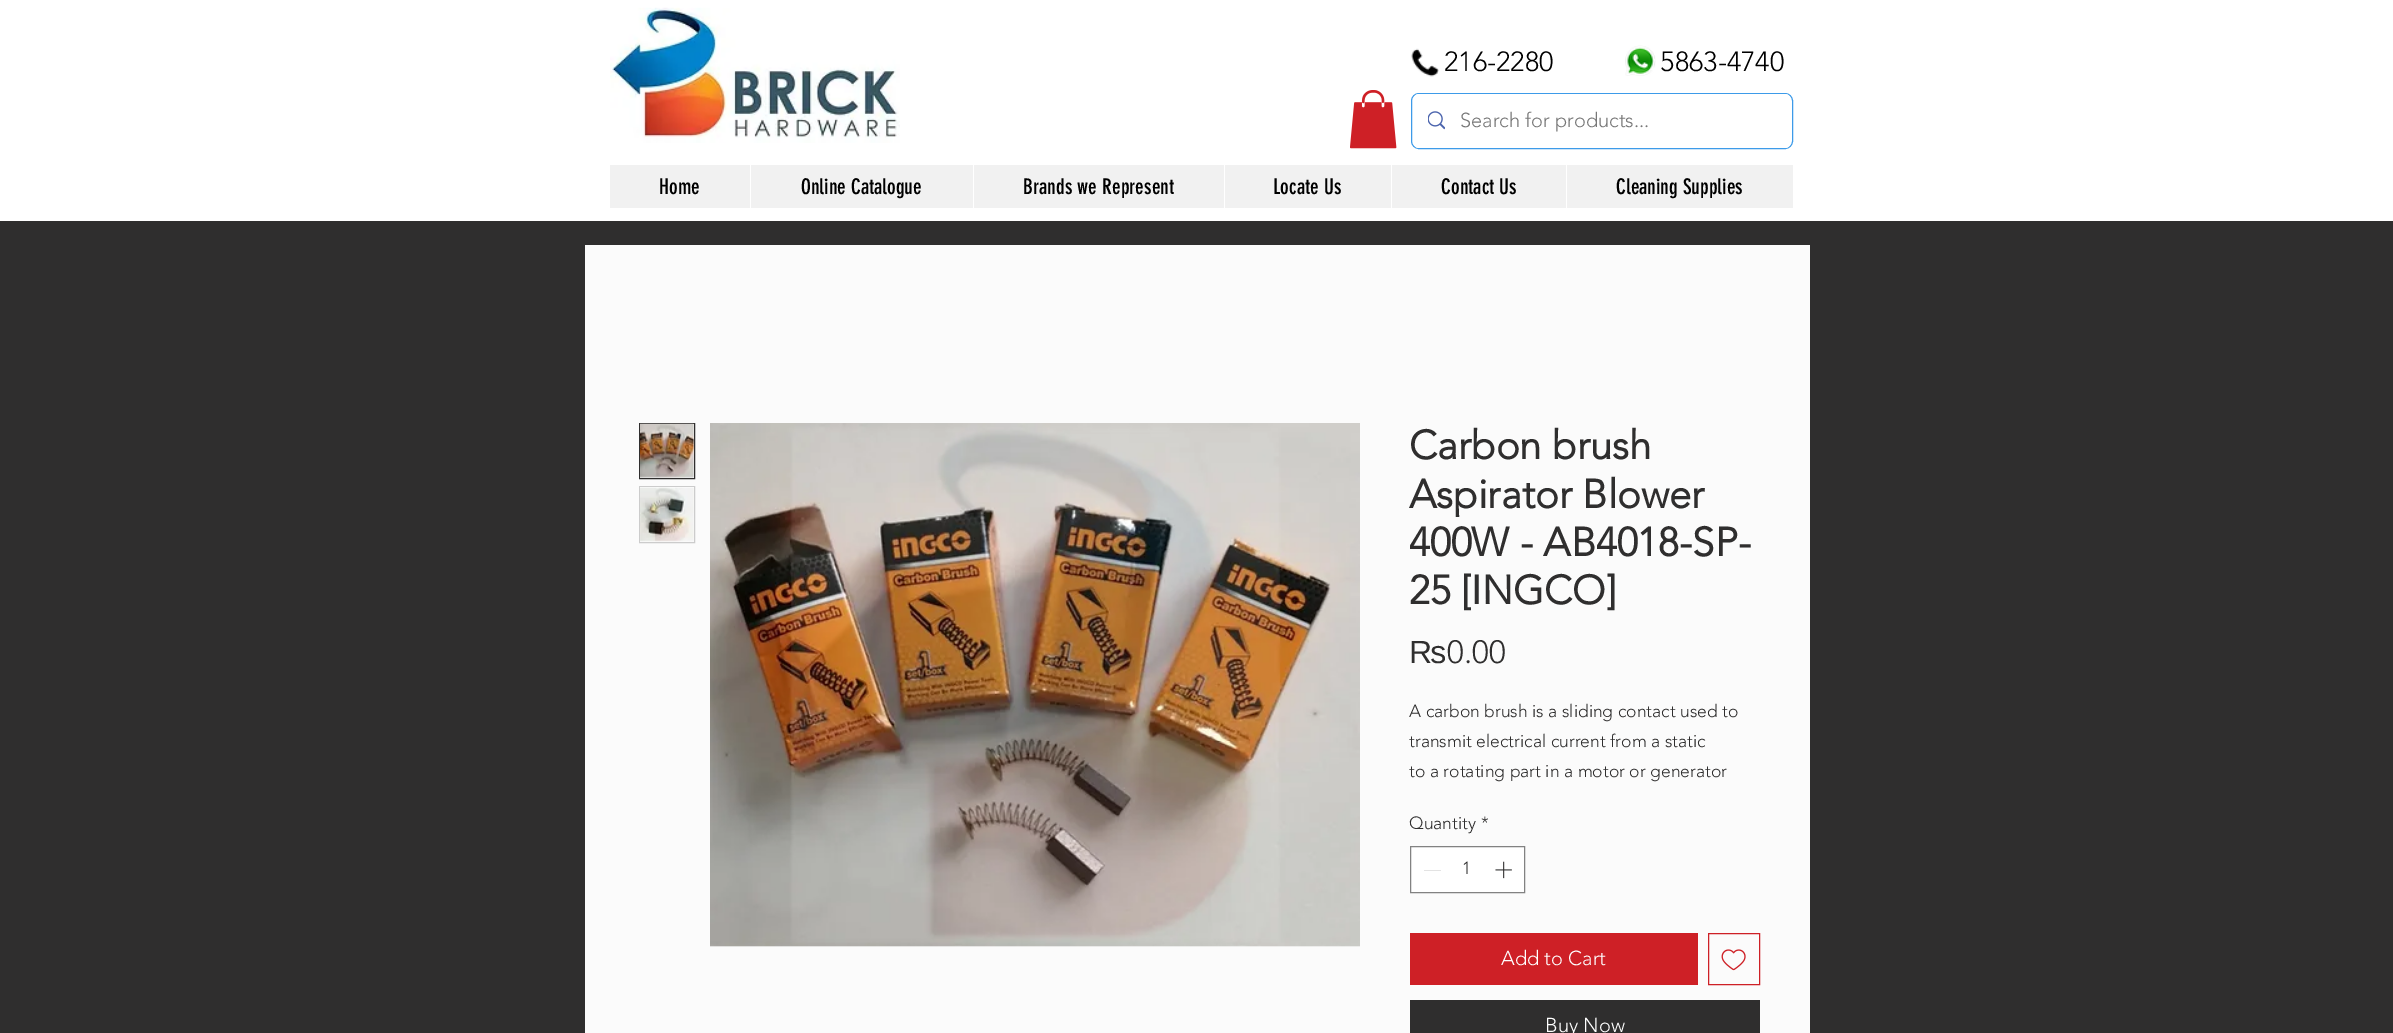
%!PS-Adobe-3.0
%%BoundingBox: 0 0 2393 1033
%%LanguageLevel: 3
%%Pages: 1
%%EndComments
%%BeginProlog
/setink { 3 { 255 div 3 1 roll } repeat setrgbcolor } def
/usefont { [ exch dup neg 0 0 3 -1 roll 0 0 ] selectfont } def
/drawtext { setink usefont moveto show } def
/fillbox { setink rectfill } def
/rrect { 5 dict begin { /r /h /w /y /x } { exch def } forall
  x r add y moveto x w add y 2 copy h add r arct x w add y h add x 1 index r arct
  x y h add x y r arct x y 2 copy exch w add exch r arct closepath end } def
/drawimage { 5 dict begin { /h /w /y /x /name } { exch def } forall
  gsave x y translate w h scale
  w h 8 [w 0 0 h 0 0] name (r) file false 3 colorimage grestore end } def
%%EndProlog
%%BeginSetup
<< /PageSize [2393 1033] >> setpagedevice
%%EndSetup
%%Page: 1 1
0 1033 translate 1 -1 scale
4 setmiterlimit
0 0 2393 1033 47 46 46 fillbox
0 0 2393 221 255 255 255 fillbox
(assets/img1.rgb) 610 7 290 136 drawimage
(assets/img2.rgb) 1411 48 28 29 drawimage
(216-2280               5863-4740) 1444 71 /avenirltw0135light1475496-Light 27.5 0 0 0 drawtext
(assets/img3.rgb) 1625 45 31 31 drawimage
(assets/img4.rgb) 1350 90 47 59 drawimage
61 155 233 setink
1411.5 93.5 381 55 7.5 rrect stroke
255 255 255 setink
1413 94 378 54 6 rrect fill
(assets/img5.rgb) 1428 111 17 19 drawimage
(Search for products...) 1460 127 /avenirltw0135light1475496-Light 20 120 120 120 drawtext
610 165 1183 43 241 241 241 fillbox
(Home) 659 194 /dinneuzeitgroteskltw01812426-Regular 21.25 0 0 0 drawtext
750 165 1 43 255 255 255 fillbox
(Online Catalogue) 801 194 /dinneuzeitgroteskltw01812426-Regular 21.25 0 0 0 drawtext
973 165 1 43 255 255 255 fillbox
(Brands we Represent) 1023 194 /dinneuzeitgroteskltw01812426-Regular 21.25 0 0 0 drawtext
1224 165 1 43 255 255 255 fillbox
(Locate Us) 1273 194 /dinneuzeitgroteskltw01812426-Regular 21.25 0 0 0 drawtext
1391 165 1 43 255 255 255 fillbox
(Contact Us) 1441 194 /dinneuzeitgroteskltw01812426-Regular 21.25 0 0 0 drawtext
1566 165 1 43 255 255 255 fillbox
(Cleaning Supplies) 1616 194 /dinneuzeitgroteskltw01812426-Regular 21.25 0 0 0 drawtext
585 245 1225 788 251 251 251 fillbox
47 46 46 setink
639.5 423.5 55 55 rectstroke
(assets/img6.rgb) 640 423 54 55 drawimage
204 204 204 setink
639.5 486.5 55 56 rectstroke
(assets/img7.rgb) 640 487 54 55 drawimage
(assets/img8.rgb) 710 423 650 524 drawimage
(Carbon brush) 1409 459 /avenirltw0135light1475496-Bold 40 47 46 46 drawtext
(Aspirator Blower) 1409 508 /avenirltw0135light1475496-Bold 40 47 46 46 drawtext
(400W - AB4018-SP-) 1409 556 /avenirltw0135light1475496-Bold 40 47 46 46 drawtext
(25 [INGCO]) 1409 604 /avenirltw0135light1475496-Bold 40 47 46 46 drawtext
(₨) 1409 663 /LiberationSans-Regular 32 47 46 46 drawtext
(0.00) 1447 663 /avenirltw0135light1475496-Light 32 47 46 46 drawtext
(A carbon brush is a sliding contact used to) 1409 717 /avenirltw0135light1475496-Light 17.5 47 46 46 drawtext
(transmit electrical current from a static) 1409 747 /avenirltw0135light1475496-Light 17.5 47 46 46 drawtext
(to a rotating part in a motor or generator) 1409 777 /avenirltw0135light1475496-Light 17.5 47 46 46 drawtext
(Quantity) 1409 829 /avenirltw0135light1475496-Light 17.5 47 46 46 drawtext
(*) 1481 829 /avenirltw0135light1475496-Light 17.5 47 46 46 drawtext
255 255 255 setink
1410.5 846.5 moveto 1524.5 846.5 lineto 1524.5 892.5 lineto 1410.5 892.5 lineto closepath gsave fill grestore
130 130 130 setink
stroke
1424 870 17 1 227 227 227 fillbox
(1) 1462 874 /avenirltw0135light1475496-Light 17.5 47 46 46 drawtext
(assets/img9.rgb) 1495 861 17 18 drawimage
1410 933 288 52 206 32 38 fillbox
(Add to Cart) 1501 965 /avenirltw0135light1475496-Light 20 255 255 255 drawtext
206 32 38 setink
1708.5 933.5 51 51 rectstroke
(assets/img10.rgb) 1721 949 25 22 drawimage
1410 1000 350 33 47 46 46 fillbox
(Buy Now) 1545 1032 /avenirltw0135light1475496-Light 20 255 255 255 drawtext
showpage
%%EOF
